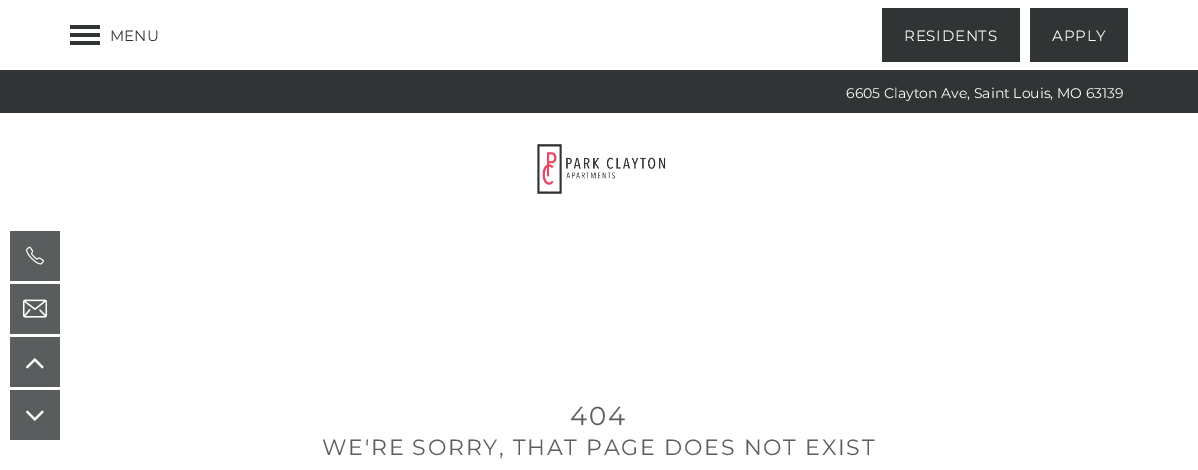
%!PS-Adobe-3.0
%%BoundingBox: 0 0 1198 470
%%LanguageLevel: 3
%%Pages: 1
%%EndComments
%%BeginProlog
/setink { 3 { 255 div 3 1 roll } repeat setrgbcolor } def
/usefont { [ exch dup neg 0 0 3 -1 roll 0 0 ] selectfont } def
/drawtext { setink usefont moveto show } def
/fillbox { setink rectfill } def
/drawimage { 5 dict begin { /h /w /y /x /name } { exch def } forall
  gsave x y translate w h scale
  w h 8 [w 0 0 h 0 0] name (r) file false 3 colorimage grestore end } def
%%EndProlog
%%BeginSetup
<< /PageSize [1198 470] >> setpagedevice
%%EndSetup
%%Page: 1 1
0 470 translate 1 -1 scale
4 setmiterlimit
0 0 1198 470 255 255 255 fillbox
70 25 30 4 48 52 53 fillbox
70 33 30 4 48 52 53 fillbox
70 41 30 4 48 52 53 fillbox
(MENU) 110 41 /Montserrat-Regular 15 48 52 53 drawtext
882 8 138 54 48 52 53 fillbox
255 255 255 setink
904 41 moveto 0.75 0 (RESIDENTS) ashow
1030 8 98 54 48 52 53 fillbox
255 255 255 setink
1052 41 moveto 0.75 0 (APPLY) ashow
(assets/img1.rgb) 537 144 129 50 drawimage
10 231 50 50 89 93 93 fillbox
(assets/img2.rgb) 26 246 18 19 drawimage
10 284 50 50 89 93 93 fillbox
(assets/img3.rgb) 22 299 26 19 drawimage
10 337 50 50 89 93 93 fillbox
(assets/img4.rgb) 26 358 18 11 drawimage
10 390 50 50 89 93 93 fillbox
(assets/img5.rgb) 26 410 18 11 drawimage
/Montserrat-Regular 26 usefont
94 94 94 setink
570 425 moveto 2 0 (404) ashow
/Montserrat-Regular 22 usefont
322 455 moveto 1.75 0 (WE'RE SORRY, THAT PAGE DOES NOT EXIST) ashow
0 70 1198 43 48 52 53 fillbox
(6605 Clayton Ave, Saint Louis, MO 63139) 846 98 /Montserrat-Regular 14 255 255 255 drawtext
showpage
%%EOF
